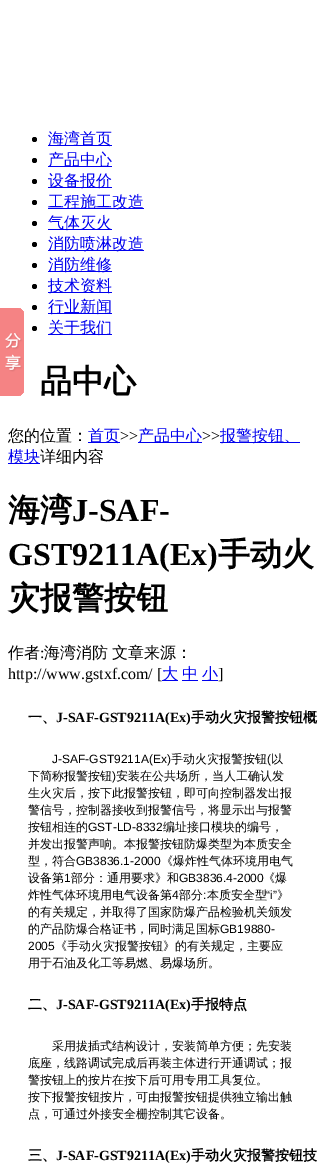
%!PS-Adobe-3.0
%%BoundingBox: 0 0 322 1170
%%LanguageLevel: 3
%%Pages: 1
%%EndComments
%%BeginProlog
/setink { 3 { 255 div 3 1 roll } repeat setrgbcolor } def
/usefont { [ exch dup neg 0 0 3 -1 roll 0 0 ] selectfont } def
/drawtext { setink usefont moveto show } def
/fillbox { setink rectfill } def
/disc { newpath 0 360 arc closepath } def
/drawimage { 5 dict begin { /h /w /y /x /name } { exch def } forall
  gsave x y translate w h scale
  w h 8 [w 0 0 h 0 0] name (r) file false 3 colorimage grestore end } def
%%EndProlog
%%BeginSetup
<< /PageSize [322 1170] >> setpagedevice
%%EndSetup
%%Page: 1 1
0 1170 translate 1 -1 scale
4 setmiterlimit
0 0 322 1170 255 255 255 fillbox
0 0 0 setink
34.5 139.5 2.5 disc fill
48 145 64 1 0 0 238 fillbox
(海湾首页) 48 144 /WenQuanYiZenHei-Medium 16 0 0 238 drawtext
0 0 0 setink
34.5 160.5 2.5 disc fill
48 166 64 1 0 0 238 fillbox
(产品中心) 48 165 /WenQuanYiZenHei-Medium 16 0 0 238 drawtext
0 0 0 setink
34.5 181.5 2.5 disc fill
48 187 64 1 0 0 238 fillbox
(设备报价) 48 186 /WenQuanYiZenHei-Medium 16 0 0 238 drawtext
0 0 0 setink
34.5 202.5 2.5 disc fill
48 208 96 1 0 0 238 fillbox
(工程施工改造) 48 207 /WenQuanYiZenHei-Medium 16 0 0 238 drawtext
0 0 0 setink
34.5 223.5 2.5 disc fill
48 229 64 1 0 0 238 fillbox
(气体灭火) 48 228 /WenQuanYiZenHei-Medium 16 0 0 238 drawtext
0 0 0 setink
34.5 244.5 2.5 disc fill
48 250 96 1 0 0 238 fillbox
(消防喷淋改造) 48 249 /WenQuanYiZenHei-Medium 16 0 0 238 drawtext
0 0 0 setink
34.5 265.5 2.5 disc fill
48 271 64 1 0 0 238 fillbox
(消防维修) 48 270 /WenQuanYiZenHei-Medium 16 0 0 238 drawtext
0 0 0 setink
34.5 286.5 2.5 disc fill
48 292 64 1 0 0 238 fillbox
(技术资料) 48 291 /WenQuanYiZenHei-Medium 16 0 0 238 drawtext
0 0 0 setink
34.5 307.5 2.5 disc fill
48 313 64 1 0 0 238 fillbox
(行业新闻) 48 312 /WenQuanYiZenHei-Medium 16 0 0 238 drawtext
0 0 0 setink
34.5 328.5 2.5 disc fill
48 334 64 1 0 0 238 fillbox
(关于我们) 48 333 /WenQuanYiZenHei-Medium 16 0 0 238 drawtext
(品中心) 40 392 /WenQuanYiZenHei-Bold 32 0 0 0 drawtext
(您的位置：) 8 441 /WenQuanYiZenHei-Medium 16 0 0 0 drawtext
88 442 32 1 0 0 238 fillbox
(首页) 88 441 /WenQuanYiZenHei-Medium 16 0 0 238 drawtext
(>>) 120 441 /LiberationSerif-Regular 16 0 0 0 drawtext
138 442 64 1 0 0 238 fillbox
(产品中心) 138 441 /WenQuanYiZenHei-Medium 16 0 0 238 drawtext
(>>) 202 441 /LiberationSerif-Regular 16 0 0 0 drawtext
220 442 80 1 0 0 238 fillbox
(报警按钮、) 220 441 /WenQuanYiZenHei-Medium 16 0 0 238 drawtext
8 463 32 1 0 0 238 fillbox
(模块) 8 462 /WenQuanYiZenHei-Medium 16 0 0 238 drawtext
(详细内容) 40 462 /WenQuanYiZenHei-Medium 16 0 0 0 drawtext
(海湾) 8 521 /WenQuanYiZenHei-Bold 32 0 0 0 drawtext
(J-SAF-) 72 521 /LiberationSerif-Bold 32 0 0 0 drawtext
(GST9211A\(Ex\)) 8 565 /LiberationSerif-Bold 32 0 0 0 drawtext
(手动火) 218 565 /WenQuanYiZenHei-Bold 32 0 0 0 drawtext
(灾报警按钮) 8 609 /WenQuanYiZenHei-Bold 32 0 0 0 drawtext
(作者) 8 658 /WenQuanYiZenHei-Medium 16 0 0 0 drawtext
(:) 40 658 /LiberationSerif-Regular 16 0 0 0 drawtext
/WenQuanYiZenHei-Medium 16 usefont
44 658 moveto -1 0 32 (海湾消防 文章来源：) widthshow
(http://www.gstxf.com/ [) 8 679 /LiberationSerif-Regular 16 0 0 0 drawtext
162 680 16 1 0 0 238 fillbox
(大) 162 679 /WenQuanYiZenHei-Medium 16 0 0 238 drawtext
182 680 16 1 0 0 238 fillbox
(中) 182 679 /WenQuanYiZenHei-Medium 16 0 0 238 drawtext
202 680 16 1 0 0 238 fillbox
(小) 202 679 /WenQuanYiZenHei-Medium 16 0 0 238 drawtext
(]) 218 679 /LiberationSerif-Regular 16 0 0 0 drawtext
(一、) 28 722 /WenQuanYiZenHei-Bold 14 0 0 0 drawtext
(J-SAF-GST9211A\(Ex\)) 56 722 /LiberationSerif-Bold 14 0 0 0 drawtext
(手动火灾报警按钮概) 191 722 /WenQuanYiZenHei-Bold 14 0 0 0 drawtext
(J-SAF-GST9211A\(Ex\)) 52 763 /LiberationSans-Regular 12 0 0 0 drawtext
(手动火灾报警按钮) 171 763 /WenQuanYiZenHei-Medium 12 0 0 0 drawtext
(\() 267 763 /LiberationSans-Regular 12 0 0 0 drawtext
(以) 271 763 /WenQuanYiZenHei-Medium 12 0 0 0 drawtext
(下简称报警按钮) 28 780 /WenQuanYiZenHei-Medium 12 0 0 0 drawtext
(\)) 112 780 /LiberationSans-Regular 12 0 0 0 drawtext
(安装在公共场所，当人工确认发) 116 780 /WenQuanYiZenHei-Medium 12 0 0 0 drawtext
(生火灾后，按下此报警按钮，即可向控制器发出报) 28 797 /WenQuanYiZenHei-Medium 12 0 0 0 drawtext
(警信号，控制器接收到报警信号，将显示出与报警) 28 814 /WenQuanYiZenHei-Medium 12 0 0 0 drawtext
(按钮相连的) 28 831 /WenQuanYiZenHei-Medium 12 0 0 0 drawtext
(GST-LD-8332) 88 831 /LiberationSans-Regular 12 0 0 0 drawtext
(编址接口模块的编号，) 163 831 /WenQuanYiZenHei-Medium 12 0 0 0 drawtext
(并发出报警声响。本报警按钮防爆类型为本质安全) 28 848 /WenQuanYiZenHei-Medium 12 0 0 0 drawtext
(型，符合) 28 865 /WenQuanYiZenHei-Medium 12 0 0 0 drawtext
(GB3836.1-2000) 76 865 /LiberationSans-Regular 12 0 0 0 drawtext
(《爆炸性气体环境用电气) 161 865 /WenQuanYiZenHei-Medium 12 0 0 0 drawtext
(设备第) 28 882 /WenQuanYiZenHei-Medium 12 0 0 0 drawtext
(1) 64 882 /LiberationSans-Regular 12 0 0 0 drawtext
(部分：通用要求》和) 71 882 /WenQuanYiZenHei-Medium 12 0 0 0 drawtext
(GB3836.4-2000) 179 882 /LiberationSans-Regular 12 0 0 0 drawtext
(《爆) 263 882 /WenQuanYiZenHei-Medium 12 0 0 0 drawtext
(炸性气体环境用电气设备第) 28 899 /WenQuanYiZenHei-Medium 12 0 0 0 drawtext
(4) 172 899 /LiberationSans-Regular 12 0 0 0 drawtext
(部分 本质安全型) 179 899 /WenQuanYiZenHei-Medium 12 0 0 0 drawtext
(“i”) 266 899 /LiberationSans-Regular 12 0 0 0 drawtext
(》) 277 899 /WenQuanYiZenHei-Medium 12 0 0 0 drawtext
(:) 203 899 /LiberationSans-Regular 12 0 0 0 drawtext
(的有关规定，并取得了国家防爆产品检验机关颁发) 28 916 /WenQuanYiZenHei-Medium 12 0 0 0 drawtext
(的产品防爆合格证书，同时满足国标) 28 933 /WenQuanYiZenHei-Medium 12 0 0 0 drawtext
(GB19880-) 220 933 /LiberationSans-Regular 12 0 0 0 drawtext
(2005) 28 950 /LiberationSans-Regular 12 0 0 0 drawtext
(《手动火灾报警按钮》的有关规定，主要应) 55 950 /WenQuanYiZenHei-Medium 12 0 0 0 drawtext
(用于石油及化工等易燃、易爆场所。) 28 967 /WenQuanYiZenHei-Medium 12 0 0 0 drawtext
(二、) 28 1009 /WenQuanYiZenHei-Bold 14 0 0 0 drawtext
(J-SAF-GST9211A\(Ex\)) 56 1009 /LiberationSerif-Bold 14 0 0 0 drawtext
(手报特点) 191 1009 /WenQuanYiZenHei-Bold 14 0 0 0 drawtext
(采用拔插式结构设计，安装简单方便；先安装) 52 1050 /WenQuanYiZenHei-Medium 12 0 0 0 drawtext
(底座，线路调试完成后再装主体进行开通调试；报) 28 1067 /WenQuanYiZenHei-Medium 12 0 0 0 drawtext
(警按钮上的按片在按下后可用专用工具复位。) 28 1084 /WenQuanYiZenHei-Medium 12 0 0 0 drawtext
(按下报警按钮按片，可由报警按钮提供独立输出触) 28 1101 /WenQuanYiZenHei-Medium 12 0 0 0 drawtext
(点，可通过外接安全栅控制其它设备。) 28 1118 /WenQuanYiZenHei-Medium 12 0 0 0 drawtext
(三、) 28 1160 /WenQuanYiZenHei-Bold 14 0 0 0 drawtext
(J-SAF-GST9211A\(Ex\)) 56 1160 /LiberationSerif-Bold 14 0 0 0 drawtext
(手动火灾报警按钮技) 191 1160 /WenQuanYiZenHei-Bold 14 0 0 0 drawtext
(assets/img1.rgb) 0 308 24 88 drawimage
showpage
%%EOF
